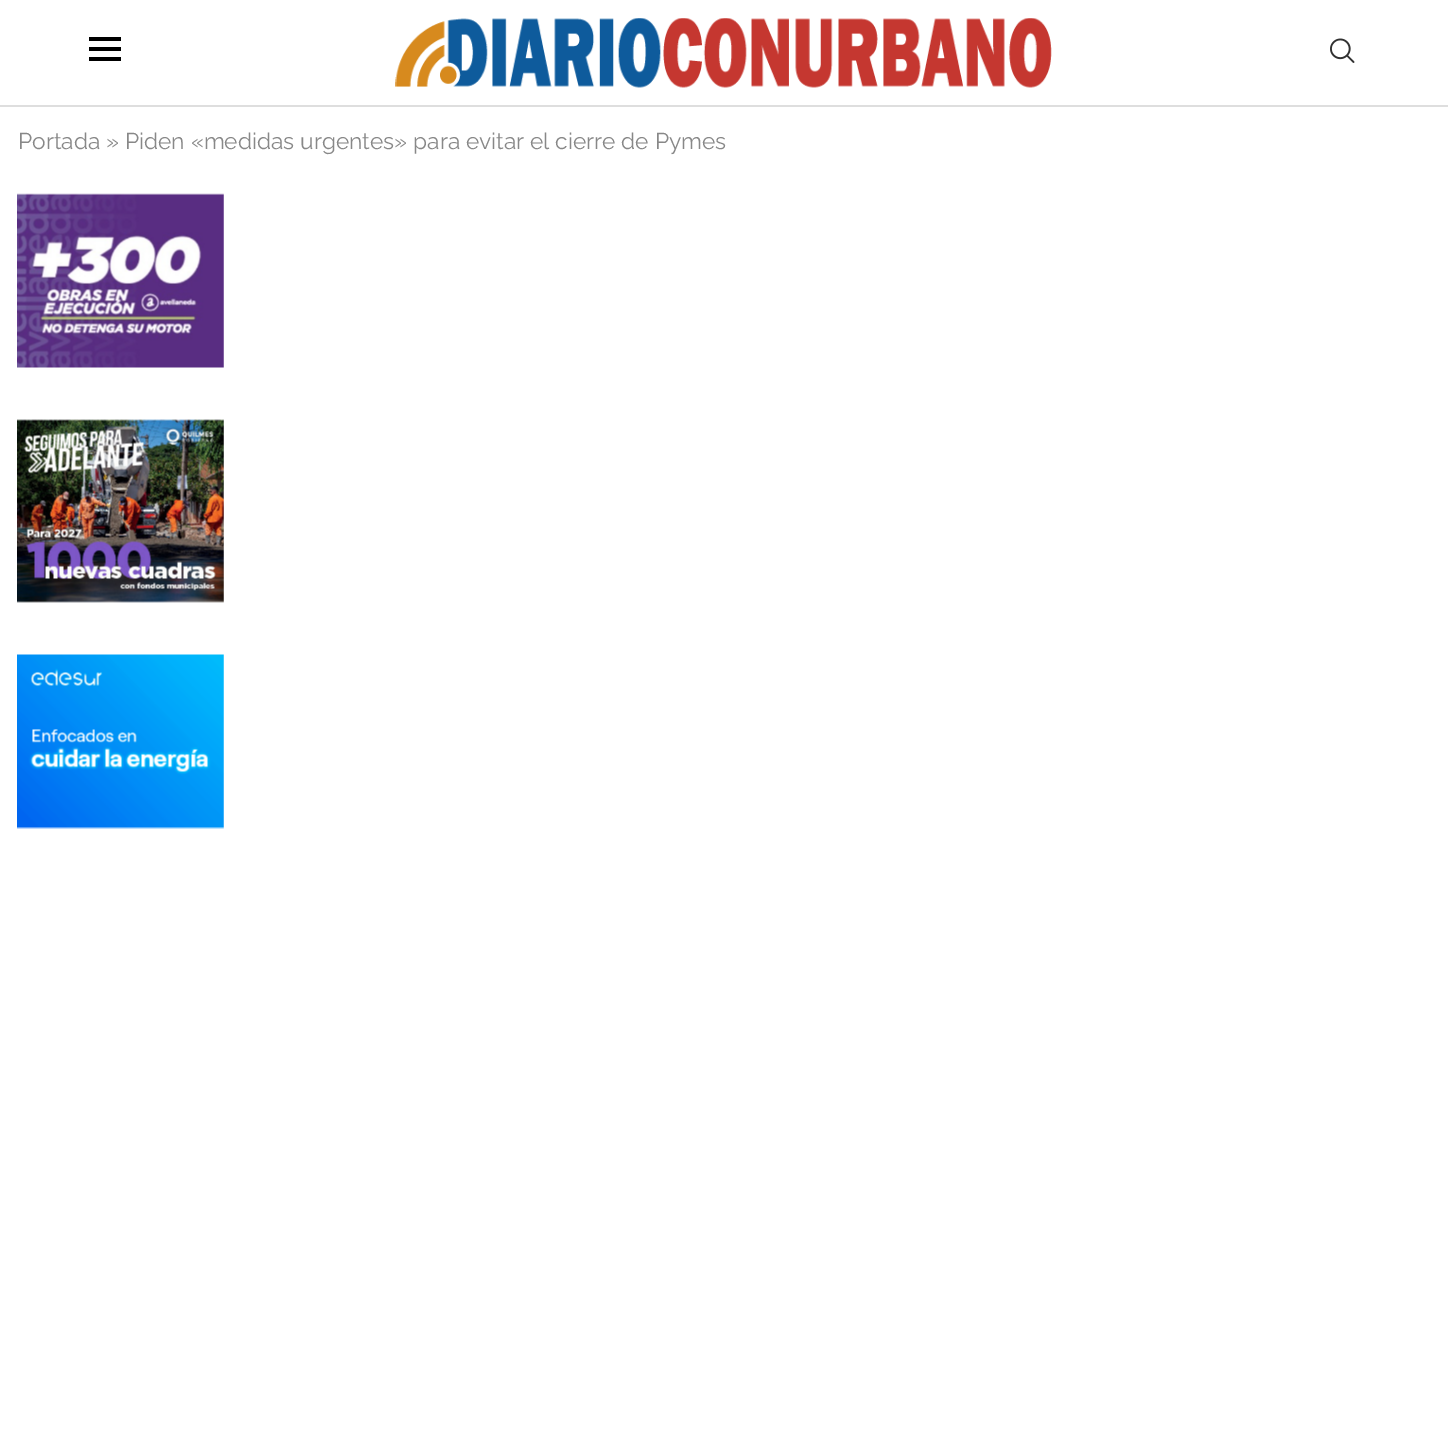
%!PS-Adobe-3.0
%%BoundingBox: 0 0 1448 1429
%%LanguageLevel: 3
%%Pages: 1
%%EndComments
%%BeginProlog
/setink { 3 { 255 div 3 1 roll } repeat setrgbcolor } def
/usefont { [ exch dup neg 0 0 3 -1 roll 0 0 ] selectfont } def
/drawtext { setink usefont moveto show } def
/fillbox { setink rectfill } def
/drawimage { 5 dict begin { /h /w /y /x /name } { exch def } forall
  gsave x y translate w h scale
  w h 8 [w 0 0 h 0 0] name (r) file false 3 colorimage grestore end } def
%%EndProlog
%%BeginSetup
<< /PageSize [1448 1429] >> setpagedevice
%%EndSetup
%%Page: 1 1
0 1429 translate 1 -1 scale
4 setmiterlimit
0 0 1448 1429 255 255 255 fillbox
0 105 1448 2 222 222 222 fillbox
89 37 32 4 0 0 0 fillbox
89 47 32 4 0 0 0 fillbox
89 57 32 4 0 0 0 fillbox
(assets/img1.rgb) 395 18 657 70 drawimage
(assets/img2.rgb) 1330 38 25 25 drawimage
(Portada » Piden «medidas urgentes» para evitar el cierre de Pymes) 18 149 /Raleway-Regular 22.75 136 136 136 drawtext
(assets/img3.rgb) 17 193 207 175 drawimage
(assets/img4.rgb) 17 419 207 184 drawimage
(assets/img5.rgb) 17 654 207 175 drawimage
showpage
%%EOF
